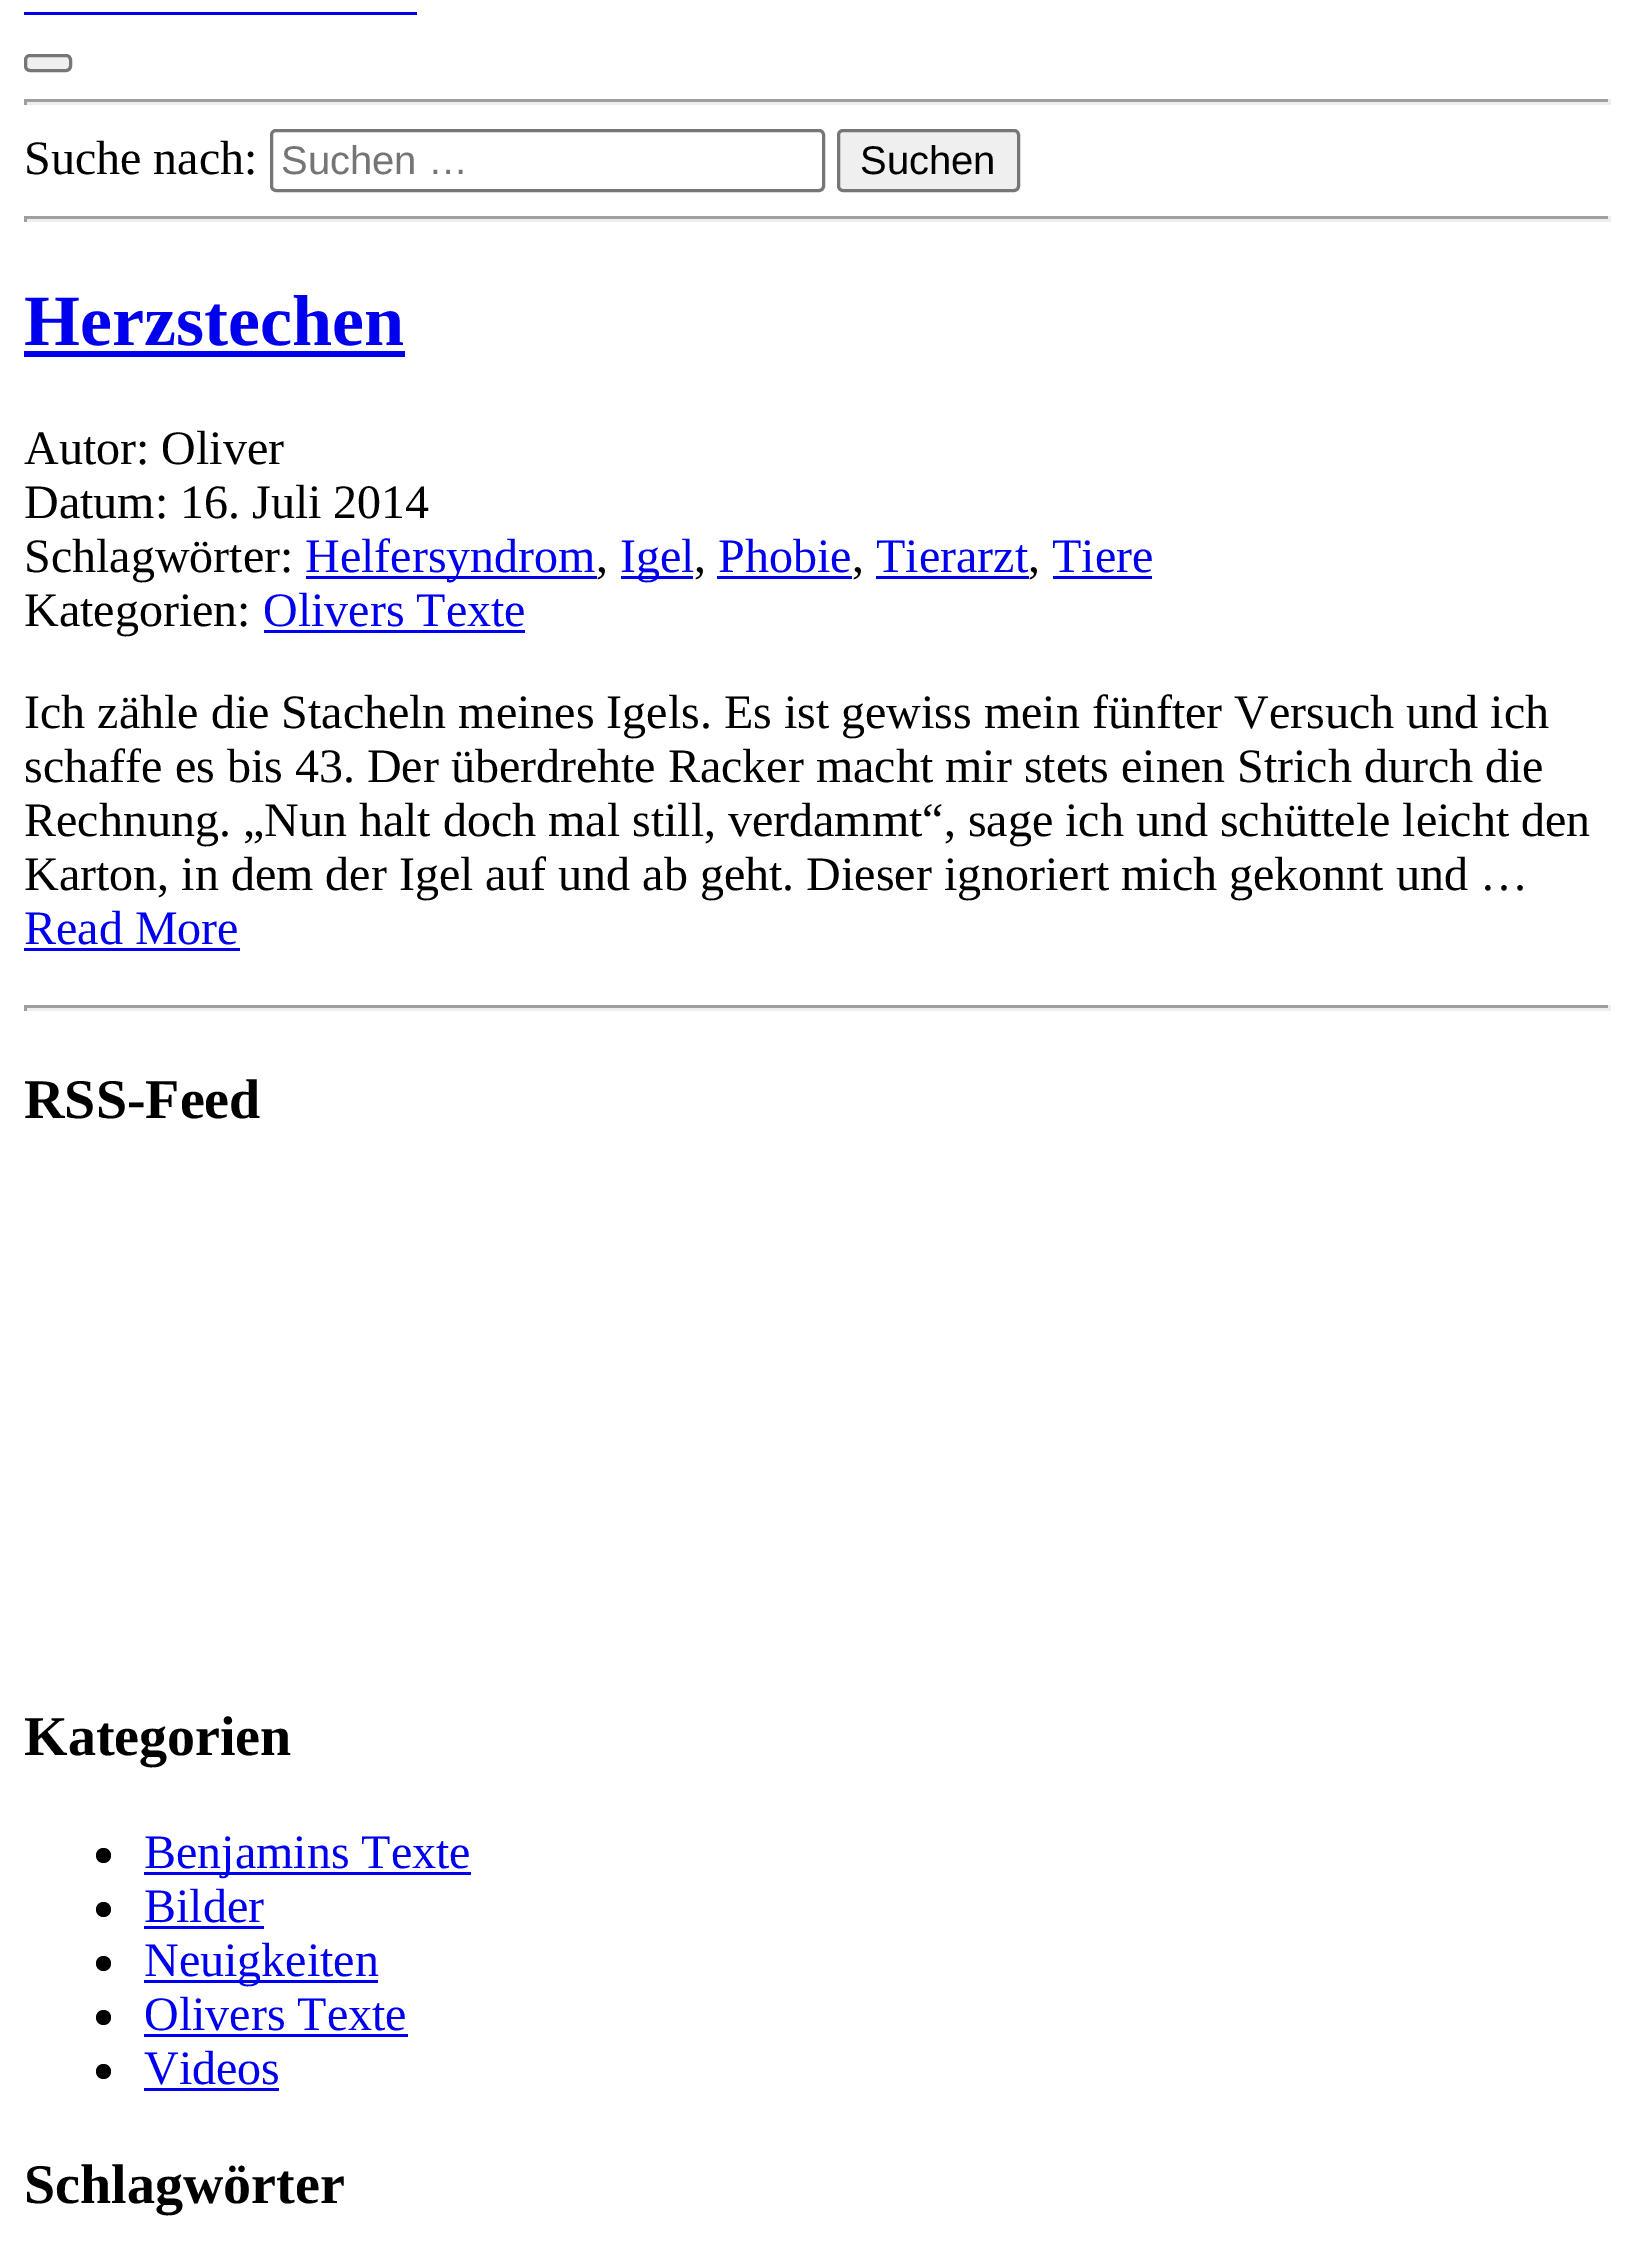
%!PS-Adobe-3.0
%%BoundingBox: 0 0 1635 2262
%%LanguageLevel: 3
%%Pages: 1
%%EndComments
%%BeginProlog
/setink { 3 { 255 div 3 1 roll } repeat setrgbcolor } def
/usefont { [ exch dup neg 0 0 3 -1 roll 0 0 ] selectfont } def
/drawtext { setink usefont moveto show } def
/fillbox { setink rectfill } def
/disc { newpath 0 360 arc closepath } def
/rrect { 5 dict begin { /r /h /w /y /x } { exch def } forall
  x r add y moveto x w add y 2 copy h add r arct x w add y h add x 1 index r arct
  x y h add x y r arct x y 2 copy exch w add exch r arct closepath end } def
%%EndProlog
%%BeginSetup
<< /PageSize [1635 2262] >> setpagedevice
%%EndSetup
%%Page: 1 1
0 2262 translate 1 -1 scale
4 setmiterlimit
0 0 1635 2262 255 255 255 fillbox
24 12 393 3 0 0 238 fillbox
239 239 239 setink
25.5 55.5 45 15 4.5 rrect gsave fill grestore
118 118 118 setink
3 setlinewidth
stroke
24 99 1587 3 159 159 159 fillbox
1608 99 3 6 238 238 238 fillbox
24 102 1587 3 238 238 238 fillbox
24 99 3 6 159 159 159 fillbox
(Suche nach:) 24 174 /LiberationSerif-Regular 48 0 0 0 drawtext
118 118 118 setink
271.5 130.5 552 60 4.5 rrect stroke
(Suchen …) 281 174 /LiberationSans-Regular 40 117 117 117 drawtext
239 239 239 setink
838.5 130.5 180 60 4.5 rrect gsave fill grestore
118 118 118 setink
stroke
(Suchen) 860 174 /LiberationSans-Regular 40 0 0 0 drawtext
24 216 1587 3 159 159 159 fillbox
1608 216 3 6 238 238 238 fillbox
24 219 1587 3 238 238 238 fillbox
24 216 3 6 159 159 159 fillbox
(Herzstechen) 24 345 /LiberationSerif-Bold 72 0 0 238 drawtext
24 351 381 6 0 0 238 fillbox
(Autor: Oliver) 24 464 /LiberationSerif-Regular 48 0 0 0 drawtext
(Datum: 16. Juli 2014) 24 518 /LiberationSerif-Regular 48 0 0 0 drawtext
(Schlagwörter:) 24 572 /LiberationSerif-Regular 48 0 0 0 drawtext
306 576 291 3 0 0 238 fillbox
(Helfersyndrom) 305 572 /LiberationSerif-Regular 48 0 0 238 drawtext
(,) 596 572 /LiberationSerif-Regular 48 0 0 0 drawtext
621 576 72 3 0 0 238 fillbox
(Igel) 620 572 /LiberationSerif-Regular 48 0 0 238 drawtext
(,) 694 572 /LiberationSerif-Regular 48 0 0 0 drawtext
(Phobie) 718 572 /LiberationSerif-Regular 48 0 0 238 drawtext
717 576 135 3 0 0 238 fillbox
(,) 852 572 /LiberationSerif-Regular 48 0 0 0 drawtext
(Tierarzt) 876 572 /LiberationSerif-Regular 48 0 0 238 drawtext
876 576 153 3 0 0 238 fillbox
(,) 1028 572 /LiberationSerif-Regular 48 0 0 0 drawtext
(Tiere) 1052 572 /LiberationSerif-Regular 48 0 0 238 drawtext
1053 576 99 3 0 0 238 fillbox
(Kategorien:) 24 626 /LiberationSerif-Regular 48 0 0 0 drawtext
(Olivers Texte) 263 626 /LiberationSerif-Regular 48 0 0 238 drawtext
264 630 261 3 0 0 238 fillbox
(Ich zähle die Stacheln meines Igels. Es ist gewiss mein fünfter Versuch und ich) 24 728 /LiberationSerif-Regular 48 0 0 0 drawtext
(schaffe es bis 43. Der überdrehte Racker macht mir stets einen Strich durch die) 24 782 /LiberationSerif-Regular 48 0 0 0 drawtext
(Rechnung. „Nun halt doch mal still, verdammt“, sage ich und schüttele leicht den) 24 836 /LiberationSerif-Regular 48 0 0 0 drawtext
(Karton, in dem der Igel auf und ab geht. Dieser ignoriert mich gekonnt und …) 24 890 /LiberationSerif-Regular 48 0 0 0 drawtext
(Read More) 24 944 /LiberationSerif-Regular 48 0 0 238 drawtext
24 948 216 3 0 0 238 fillbox
24 1005 1587 3 159 159 159 fillbox
1608 1005 3 6 238 238 238 fillbox
24 1008 1587 3 238 238 238 fillbox
24 1005 3 6 159 159 159 fillbox
(RSS-Feed) 24 1118 /LiberationSerif-Bold 56 0 0 0 drawtext
(Kategorien) 24 1755 /LiberationSerif-Bold 56 0 0 0 drawtext
103.5 1855.5 7.5 disc fill
144 1872 327 3 0 0 238 fillbox
(Benjamins Texte) 144 1868 /LiberationSerif-Regular 48 0 0 238 drawtext
0 0 0 setink
103.5 1909.5 7.5 disc fill
(Bilder) 144 1922 /LiberationSerif-Regular 48 0 0 238 drawtext
144 1926 120 3 0 0 238 fillbox
0 0 0 setink
103.5 1963.5 7.5 disc fill
144 1980 234 3 0 0 238 fillbox
(Neuigkeiten) 144 1976 /LiberationSerif-Regular 48 0 0 238 drawtext
0 0 0 setink
103.5 2017.5 7.5 disc fill
(Olivers Texte) 144 2030 /LiberationSerif-Regular 48 0 0 238 drawtext
144 2034 264 3 0 0 238 fillbox
0 0 0 setink
103.5 2071.5 7.5 disc fill
(Videos) 144 2084 /LiberationSerif-Regular 48 0 0 238 drawtext
144 2088 135 3 0 0 238 fillbox
(Schlagwörter) 24 2203 /LiberationSerif-Bold 56 0 0 0 drawtext
showpage
%%EOF
